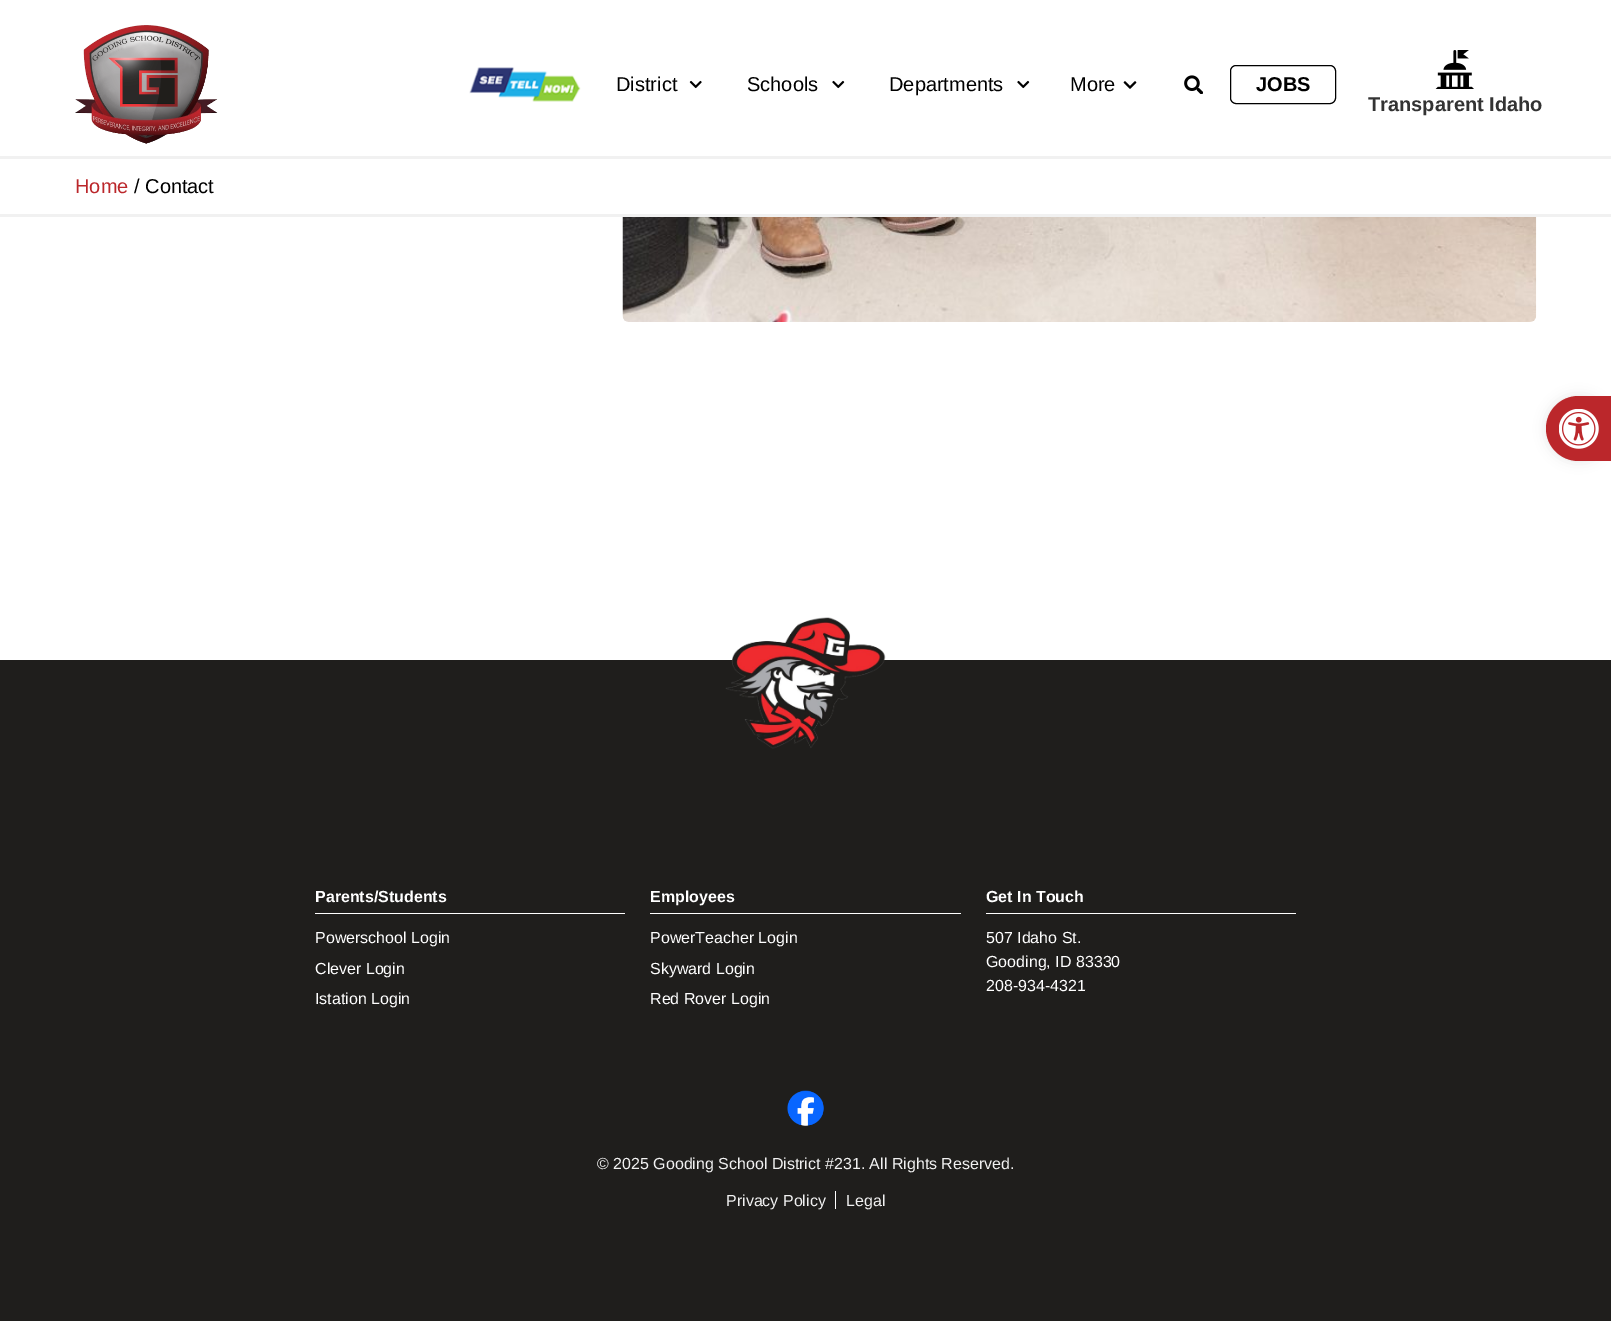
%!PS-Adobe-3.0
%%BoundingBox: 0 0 1611 1321
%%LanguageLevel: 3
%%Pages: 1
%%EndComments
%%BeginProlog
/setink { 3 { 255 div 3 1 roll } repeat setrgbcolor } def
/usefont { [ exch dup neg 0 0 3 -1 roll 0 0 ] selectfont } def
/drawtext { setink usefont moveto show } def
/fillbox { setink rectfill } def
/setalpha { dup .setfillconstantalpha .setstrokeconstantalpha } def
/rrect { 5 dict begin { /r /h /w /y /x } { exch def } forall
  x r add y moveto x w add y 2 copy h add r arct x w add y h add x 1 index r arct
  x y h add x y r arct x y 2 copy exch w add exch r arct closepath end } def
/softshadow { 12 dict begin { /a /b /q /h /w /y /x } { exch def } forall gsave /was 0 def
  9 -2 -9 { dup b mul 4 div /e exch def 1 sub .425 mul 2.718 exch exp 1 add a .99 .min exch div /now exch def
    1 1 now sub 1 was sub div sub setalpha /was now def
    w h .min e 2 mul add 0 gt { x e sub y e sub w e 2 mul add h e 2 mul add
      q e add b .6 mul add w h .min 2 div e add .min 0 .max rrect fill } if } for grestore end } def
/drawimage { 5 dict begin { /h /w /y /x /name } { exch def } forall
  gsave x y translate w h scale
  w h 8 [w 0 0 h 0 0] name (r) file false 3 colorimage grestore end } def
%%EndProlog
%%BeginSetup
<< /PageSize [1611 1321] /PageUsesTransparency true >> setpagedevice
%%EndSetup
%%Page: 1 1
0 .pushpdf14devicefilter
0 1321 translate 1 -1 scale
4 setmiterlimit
0 0 1611 1321 255 255 255 fillbox
0 156 1611 3 241 241 241 fillbox
(assets/img1.rgb) 75 25 143 119 drawimage
(assets/img2.rgb) 469 67 112 35 drawimage
(District) 616 91 /LiberationSans-Regular 20 0 0 0 drawtext
(assets/img3.rgb) 689 80 13 9 drawimage
(Schools) 747 91 /LiberationSans-Regular 20 0 0 0 drawtext
(assets/img4.rgb) 832 80 13 9 drawimage
(Departments) 889 91 /LiberationSans-Regular 20 0 0 0 drawtext
(assets/img4.rgb) 1017 80 13 9 drawimage
(More) 1070 91 /LiberationSans-Regular 20 0 0 0 drawtext
(assets/img5.rgb) 1123 81 14 8 drawimage
(assets/img6.rgb) 1184 75 19 19 drawimage
1230.5 65.5 105 38 5.5 rrect stroke
(JOBS) 1256 91 /LiberationSans-Bold 20 0 0 0 drawtext
(assets/img7.rgb) 1435 50 39 39 drawimage
(Transparent Idaho) 1368 111 /LiberationSans-Bold 20 51 51 51 drawtext
0 214 1611 3 241 241 241 fillbox
(Home) 75 193 /LiberationSans-Regular 20 187 39 43 drawtext
(/ Contact) 134 193 /LiberationSans-Regular 20 0 0 0 drawtext
(assets/img8.rgb) 622 217 915 105 drawimage
1546 396 65 65 32.5 6 0.1 softshadow
187 39 43 setink
1578.5 396 moveto 1611 396 lineto 1611 461 lineto 1578.5 461 lineto 1560.5 461 1546 446.5 1546 428.5 curveto 1546 410.5 1560.5 396 1578.5 396 curveto closepath fill
(assets/img9.rgb) 1559 409 40 40 drawimage
0 660 1611 661 31 30 28 fillbox
(assets/img10.rgb) 725 617 161 132 drawimage
315 913 310 1 255 255 255 fillbox
(Parents/Students) 315 902 /LiberationSans-Bold 16 255 255 255 drawtext
(Powerschool Login) 315 943 /LiberationSans-Regular 16 255 255 255 drawtext
(Clever Login) 315 974 /LiberationSans-Regular 16 255 255 255 drawtext
(Istation Login) 315 1004 /LiberationSans-Regular 16 255 255 255 drawtext
650 913 311 1 255 255 255 fillbox
(Employees) 650 902 /LiberationSans-Bold 16 255 255 255 drawtext
(PowerTeacher Login) 650 943 /LiberationSans-Regular 16 255 255 255 drawtext
(Skyward Login) 650 974 /LiberationSans-Regular 16 255 255 255 drawtext
(Red Rover Login) 650 1004 /LiberationSans-Regular 16 255 255 255 drawtext
986 913 310 1 255 255 255 fillbox
(Get In Touch) 986 902 /LiberationSans-Bold 16 255 255 255 drawtext
(507 Idaho St.) 986 943 /LiberationSans-Regular 16 255 255 255 drawtext
(Gooding, ID 83330) 986 967 /LiberationSans-Regular 16 255 255 255 drawtext
(208-934-4321) 986 991 /LiberationSans-Regular 16 255 255 255 drawtext
(assets/img11.rgb) 787 1090 37 36 drawimage
(© 2025 Gooding School District #231. All Rights Reserved.) 597 1169 /LiberationSans-Regular 16 241 241 241 drawtext
(Privacy Policy) 726 1206 /LiberationSans-Regular 16 241 241 241 drawtext
835 1191 1 18 255 255 255 fillbox
(Legal) 846 1206 /LiberationSans-Regular 16 241 241 241 drawtext
.poppdf14devicefilter showpage
%%EOF
